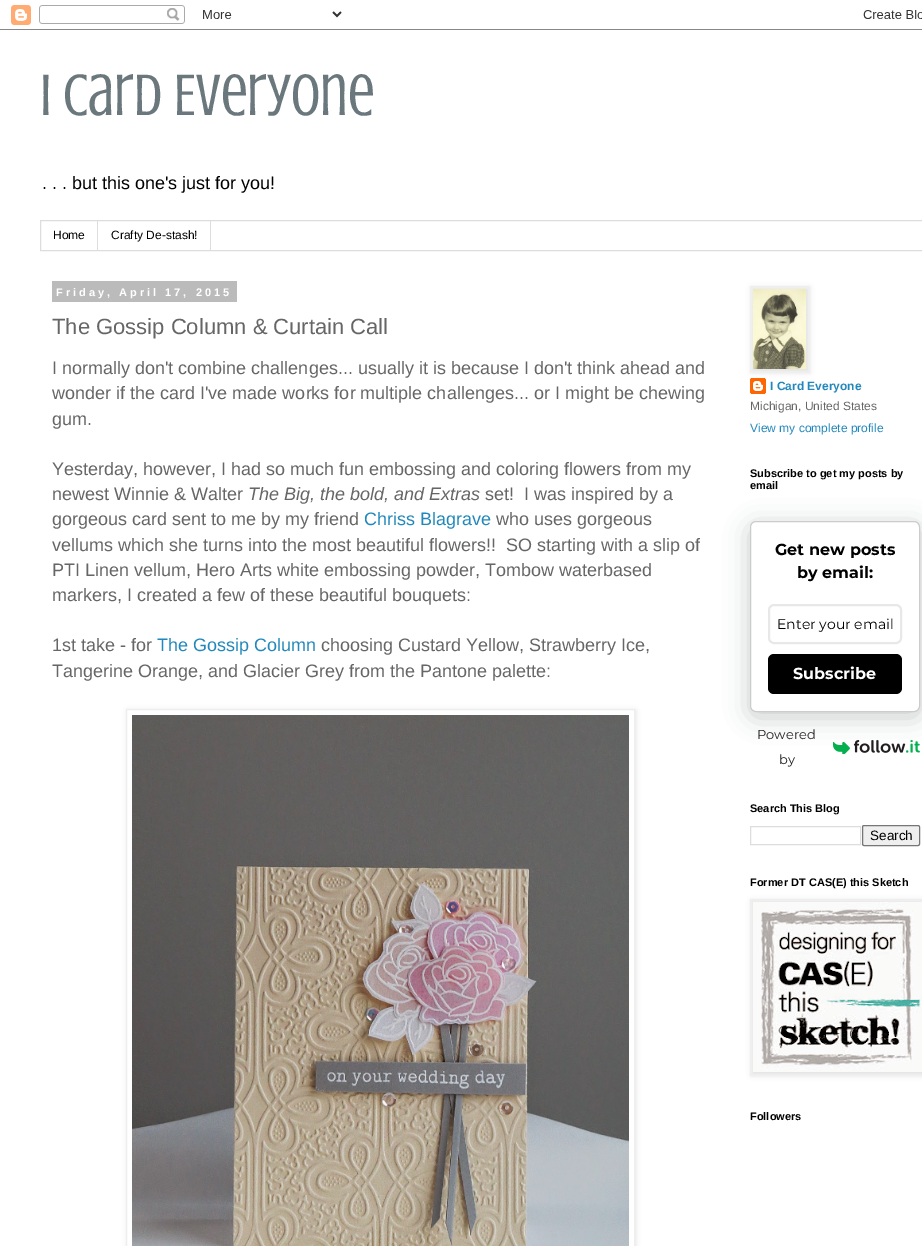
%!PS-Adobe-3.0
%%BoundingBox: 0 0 922 1246
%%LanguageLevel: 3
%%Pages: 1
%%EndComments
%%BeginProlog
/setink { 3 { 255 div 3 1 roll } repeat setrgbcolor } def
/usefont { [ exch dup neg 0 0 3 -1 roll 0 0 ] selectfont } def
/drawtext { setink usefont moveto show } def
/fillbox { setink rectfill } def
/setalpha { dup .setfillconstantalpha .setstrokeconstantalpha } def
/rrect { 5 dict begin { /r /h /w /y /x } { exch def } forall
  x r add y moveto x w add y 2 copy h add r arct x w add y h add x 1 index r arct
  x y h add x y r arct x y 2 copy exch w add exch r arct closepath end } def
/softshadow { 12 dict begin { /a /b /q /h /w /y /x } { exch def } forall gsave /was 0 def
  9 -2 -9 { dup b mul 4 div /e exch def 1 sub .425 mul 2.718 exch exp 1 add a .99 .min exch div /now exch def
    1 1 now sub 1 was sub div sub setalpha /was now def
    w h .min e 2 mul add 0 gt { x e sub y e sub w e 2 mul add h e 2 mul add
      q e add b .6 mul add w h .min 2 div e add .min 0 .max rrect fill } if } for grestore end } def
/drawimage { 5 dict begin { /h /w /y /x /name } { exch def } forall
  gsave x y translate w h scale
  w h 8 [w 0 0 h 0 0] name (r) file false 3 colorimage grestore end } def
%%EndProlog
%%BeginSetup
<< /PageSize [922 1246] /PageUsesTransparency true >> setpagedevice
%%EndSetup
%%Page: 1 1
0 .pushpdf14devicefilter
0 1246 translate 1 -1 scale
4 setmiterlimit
0 0 922 1246 255 255 255 fillbox
(assets/img1.rgb) 0 5 922 25 drawimage
(I Card Everyone) 40 115 /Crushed-Regular 60 106 119 125 drawtext
(. . . but this one's just for you!) 42 189 /LiberationSans-Regular 18 0 0 0 drawtext
221 221 221 setink
40.5 220.5 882 30 rectstroke
97 221 1 29 221 221 221 fillbox
(Home) 53 239 /LiberationSans-Regular 12 0 0 0 drawtext
210 221 1 29 221 221 221 fillbox
(Crafty De-stash!) 111 239 /LiberationSans-Regular 12 0 0 0 drawtext
52 281 185 21 187 187 187 fillbox
/LiberationSans-Bold 11 usefont
255 255 255 setink
56 296 moveto 3 0 (Friday, April 17, 2015) ashow
(The Gossip Column & Curtain Call) 52 334 /LiberationSans-Regular 22 102 102 102 drawtext
(I normally don't combine challenges... usually it is because I don't think ahead and) 52 374 /LiberationSans-Regular 18 102 102 102 drawtext
(wonder if the card I've made works for multiple challenges... or I might be chewing) 52 399 /LiberationSans-Regular 18 102 102 102 drawtext
(gum.) 52 425 /LiberationSans-Regular 18 102 102 102 drawtext
(Yesterday, however, I had so much fun embossing and coloring flowers from my) 52 475 /LiberationSans-Regular 18 102 102 102 drawtext
(newest Winnie & Walter) 52 500 /LiberationSans-Regular 18 102 102 102 drawtext
(The Big, the bold, and Extras) 248 500 /LiberationSans-Italic 18 102 102 102 drawtext
(set!  I was inspired by a) 485 500 /LiberationSans-Regular 18 102 102 102 drawtext
(gorgeous card sent to me by my friend) 52 525 /LiberationSans-Regular 18 102 102 102 drawtext
(Chriss Blagrave) 364 525 /LiberationSans-Regular 18 34 136 187 drawtext
(who uses gorgeous) 496 525 /LiberationSans-Regular 18 102 102 102 drawtext
(vellums which she turns into the most beautiful flowers!!  SO starting with a slip of) 52 551 /LiberationSans-Regular 18 102 102 102 drawtext
(PTI Linen vellum, Hero Arts white embossing powder, Tombow waterbased) 52 576 /LiberationSans-Regular 18 102 102 102 drawtext
(markers, I created a few of these beautiful bouquets:) 52 601 /LiberationSans-Regular 18 102 102 102 drawtext
(1st take - for) 52 651 /LiberationSans-Regular 18 102 102 102 drawtext
(The Gossip Column) 157 651 /LiberationSans-Regular 18 34 136 187 drawtext
(choosing Custard Yellow, Strawberry Ice,) 321 651 /LiberationSans-Regular 18 102 102 102 drawtext
(Tangerine Orange, and Glacier Grey from the Pantone palette:) 52 677 /LiberationSans-Regular 18 102 102 102 drawtext
gsave
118 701 moveto 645 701 lineto 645 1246 lineto 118 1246 lineto closepath 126 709 moveto 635 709 lineto 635 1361 lineto 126 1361 lineto closepath eoclip newpath
0 0 0 setink
127 710 509 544 0 2.5 0.1 softshadow
grestore
238 238 238 setink
126.5 709.5 508 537 rectstroke
(assets/img2.rgb) 132 715 497 531 drawimage
(assets/img4.rgb) 750 378 16 16 drawimage
0 0 0 setink
751 287 59 86 0 2.5 0.1 softshadow
238 238 238 setink
750.5 286.5 58 85 rectstroke
(assets/img3.rgb) 753 289 53 80 drawimage
(I Card Everyone) 770 390 /LiberationSans-Bold 12 34 136 187 drawtext
(Michigan, United States) 750 410 /LiberationSans-Regular 12 102 102 102 drawtext
(View my complete profile) 750 432 /LiberationSans-Regular 12 34 136 187 drawtext
(Subscribe to get my posts by) 750 477 /LiberationSans-Bold 11 0 0 0 drawtext
(email) 750 489 /LiberationSans-Bold 11 0 0 0 drawtext
34 60 47 setink
750 526 170 191 6 12.5 0.25 softshadow
255 255 255 setink
750.5 521.5 169 190 5.5 rrect gsave fill grestore
204 204 204 setink
stroke
(Get new posts) 775 555 /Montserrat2-Thin 16 0 0 0 drawtext
(by email:) 797 578 /Montserrat2-Thin 16 0 0 0 drawtext
233 232 232 setink
2 setlinewidth
769 605 132 38 5 rrect stroke
(Enter your email) 777 629 /Montserrat-Thin 14 0 0 0 drawtext
768 654 134 40 6 rrect fill
(Subscribe) 793 679 /Montserrat2-Thin 16 255 255 255 drawtext
(Powered) 757 739 /Montserrat-Thin 13 35 31 32 drawtext
(assets/img5.rgb) 833 740 87 14 drawimage
(by) 779 764 /Montserrat-Thin 13 35 31 32 drawtext
(Search This Blog) 750 812 /LiberationSans-Bold 11 0 0 0 drawtext
221 221 221 setink
1 setlinewidth
750.5 826.5 110 18 rectstroke
239 239 239 setink
862.5 825.5 57 20 1.5 rrect gsave fill grestore
118 118 118 setink
stroke
(Search) 870 840 /LiberationSans-Regular 13.5 0 0 0 drawtext
(Former DT CAS\(E\) this Sketch) 750 886 /LiberationSans-Bold 11 0 0 0 drawtext
751 900 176 176 0 2.5 0.1 softshadow
238 238 238 setink
750.5 899.5 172 175 rectstroke
(assets/img6.rgb) 753 902 169 170 drawimage
(Followers) 750 1120 /LiberationSans-Bold 11 0 0 0 drawtext
.poppdf14devicefilter showpage
%%EOF
